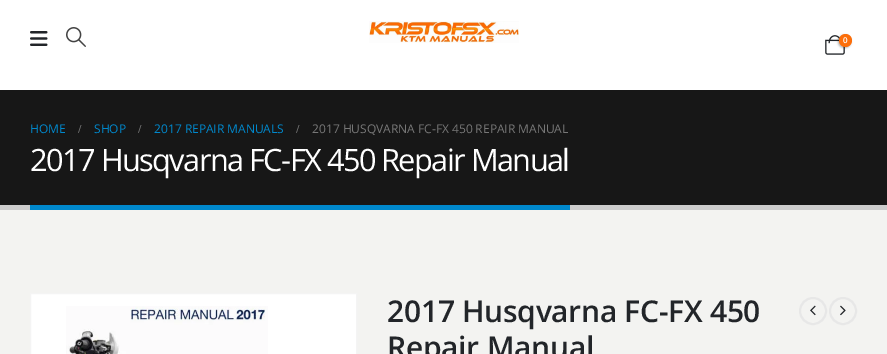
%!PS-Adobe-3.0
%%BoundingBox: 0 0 887 354
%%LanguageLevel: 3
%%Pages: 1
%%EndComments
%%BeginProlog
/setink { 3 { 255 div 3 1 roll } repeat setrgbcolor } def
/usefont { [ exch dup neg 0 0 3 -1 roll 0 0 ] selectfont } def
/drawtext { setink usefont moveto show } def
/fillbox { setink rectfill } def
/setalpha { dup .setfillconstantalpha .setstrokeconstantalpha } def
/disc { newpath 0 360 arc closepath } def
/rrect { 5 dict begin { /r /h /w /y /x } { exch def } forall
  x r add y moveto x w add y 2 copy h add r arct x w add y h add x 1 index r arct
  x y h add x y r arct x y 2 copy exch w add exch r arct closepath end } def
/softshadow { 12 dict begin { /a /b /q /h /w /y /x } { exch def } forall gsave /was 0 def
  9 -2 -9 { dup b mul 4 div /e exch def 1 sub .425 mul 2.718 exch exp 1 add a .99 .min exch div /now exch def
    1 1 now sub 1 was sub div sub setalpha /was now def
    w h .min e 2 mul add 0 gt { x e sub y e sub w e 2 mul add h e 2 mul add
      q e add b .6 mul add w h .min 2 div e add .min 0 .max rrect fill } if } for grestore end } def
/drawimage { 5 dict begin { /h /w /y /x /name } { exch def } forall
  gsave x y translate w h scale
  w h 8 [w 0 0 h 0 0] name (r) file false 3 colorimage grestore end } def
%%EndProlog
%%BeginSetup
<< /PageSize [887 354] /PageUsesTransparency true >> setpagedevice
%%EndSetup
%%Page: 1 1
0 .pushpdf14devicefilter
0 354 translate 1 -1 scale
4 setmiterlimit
0 0 887 354 255 255 255 fillbox
(assets/img1.rgb) 30 31 18 15 drawimage
(assets/img2.rgb) 66 27 20 20 drawimage
(assets/img3.rgb) 369 21 150 22 drawimage
(assets/img4.rgb) 825 35 20 20 drawimage
0 0 0 setink
838 35 13 13 6.5 1 0.3 softshadow
252 110 10 setink
845.5 40.5 6.5 disc fill
(0) 843 43 /OpenSans-SemiBold 8 255 255 255 drawtext
0 90 887 115 23 23 23 fillbox
0 205 887 5 204 204 204 fillbox
(HOME) 30 133 /OpenSans-Regular 12 0 136 204 drawtext
(/) 78 133 /LiberationSerif-Bold 12 119 119 119 drawtext
(SHOP) 94 133 /OpenSans-Regular 12 0 136 204 drawtext
(/) 138 133 /LiberationSerif-Bold 12 119 119 119 drawtext
(2017 REPAIR MANUALS) 154 133 /OpenSans-Regular 12 0 136 204 drawtext
(/) 296 133 /LiberationSerif-Bold 12 119 119 119 drawtext
(2017 HUSQVARNA FC-FX 450 REPAIR MANUAL) 312 133 /OpenSans-Regular 12 119 119 119 drawtext
/OpenSans-Regular 30.75 usefont
255 255 255 setink
30 171 moveto -1.55 0 (2017 Husqvarna FC-FX 450 Repair Manual) ashow
30 205 540 5 0 136 204 fillbox
0 210 887 144 243 243 241 fillbox
255 255 255 setink
30.5 293.5 moveto 356.5 293.5 lineto 356.5 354.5 lineto 30.5 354.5 lineto closepath gsave fill grestore
244 244 244 setink
stroke
(assets/img5.rgb) 66 306 202 48 drawimage
/OpenSans-SemiBold 30 usefont
34 37 41 setink
387 322 moveto -0.3 0 (2017 Husqvarna FC-FX 450) ashow
387 358 moveto -0.3 0 (Repair Manual) ashow
231 231 231 setink
2 setlinewidth
813 311 13 disc stroke
(assets/img6.rgb) 810 305 6 11 drawimage
843 311 13 disc stroke
(assets/img7.rgb) 840 305 6 11 drawimage
.poppdf14devicefilter showpage
%%EOF
